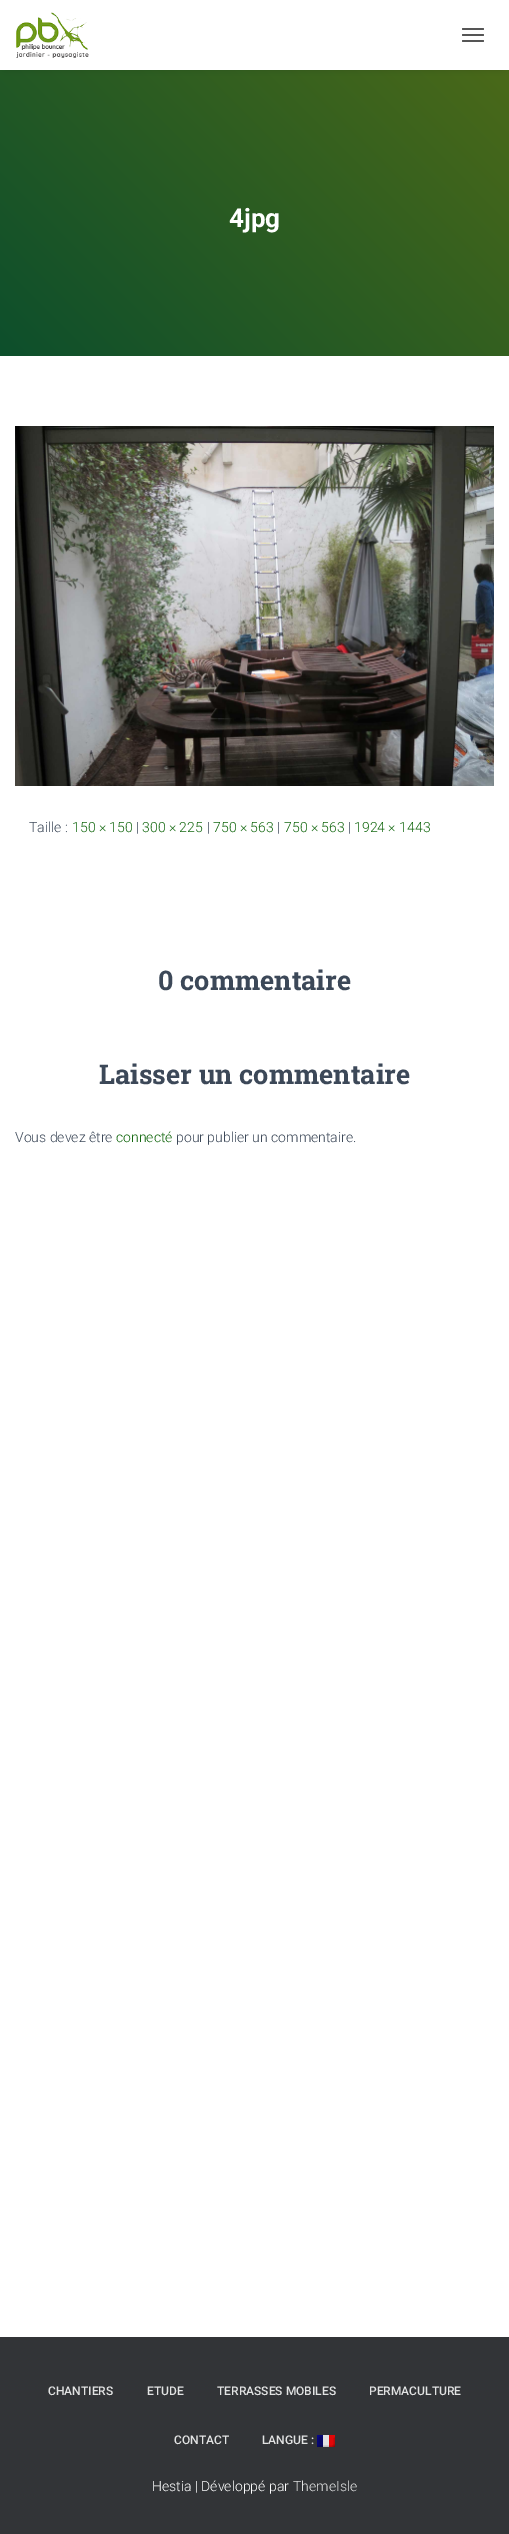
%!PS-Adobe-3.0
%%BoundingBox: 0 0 509 2534
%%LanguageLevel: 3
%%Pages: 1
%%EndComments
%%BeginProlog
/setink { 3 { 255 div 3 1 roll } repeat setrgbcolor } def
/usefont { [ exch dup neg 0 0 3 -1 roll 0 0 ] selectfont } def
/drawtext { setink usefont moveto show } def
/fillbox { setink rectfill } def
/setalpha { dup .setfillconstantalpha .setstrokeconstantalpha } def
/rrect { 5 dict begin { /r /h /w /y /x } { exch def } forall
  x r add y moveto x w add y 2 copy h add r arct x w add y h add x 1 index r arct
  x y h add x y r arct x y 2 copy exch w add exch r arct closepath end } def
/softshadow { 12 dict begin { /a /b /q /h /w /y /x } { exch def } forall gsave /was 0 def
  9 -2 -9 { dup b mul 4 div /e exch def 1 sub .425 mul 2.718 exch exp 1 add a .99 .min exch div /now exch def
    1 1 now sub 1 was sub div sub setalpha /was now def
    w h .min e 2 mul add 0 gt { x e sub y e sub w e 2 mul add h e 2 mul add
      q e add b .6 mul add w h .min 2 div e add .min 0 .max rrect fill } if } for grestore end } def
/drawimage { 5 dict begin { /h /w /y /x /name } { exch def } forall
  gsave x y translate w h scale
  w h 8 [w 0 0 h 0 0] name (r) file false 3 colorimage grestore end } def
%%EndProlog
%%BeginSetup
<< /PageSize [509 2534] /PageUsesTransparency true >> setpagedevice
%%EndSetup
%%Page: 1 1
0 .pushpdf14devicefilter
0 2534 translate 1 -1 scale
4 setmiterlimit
0 0 509 2534 50 52 55 fillbox
gsave 0 70 moveto 509 70 lineto 509 356 lineto 0 356 lineto closepath clip newpath
<< /ShadingType 2 /ColorSpace /DeviceRGB /Coords [38 394 471 -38] /Extend [true true] /Function << /FunctionType 2 /Domain [0 1] /C0 [0.051 0.31 0.173] /C1 [0.31 0.42 0.09] /N 1 >> >> shfill grestore
0 0 0 setink
6 7 497 58 0 5 0.42 softshadow
0 0 509 70 255 255 255 fillbox
(assets/img1.rgb) 16 12 73 46 drawimage
85 85 85 setink
462 28 22 2 1 rrect fill
462 34 22 2 1 rrect fill
462 40 22 2 1 rrect fill
(4jpg) 229 227 /Roboto-Bold 26 255 255 255 drawtext
0 356 509 1981 255 255 255 fillbox
(assets/img2.rgb) 15 426 479 360 drawimage
(Taille :) 29 832 /Roboto-Light 14 60 72 88 drawtext
(150 × 150) 72 832 /Roboto-Light 14 17 102 13 drawtext
(|) 136 832 /Roboto-Light 14 60 72 88 drawtext
(300 × 225) 142 832 /Roboto-Light 14 17 102 13 drawtext
(|) 207 832 /Roboto-Light 14 60 72 88 drawtext
(750 × 563) 213 832 /Roboto-Light 14 17 102 13 drawtext
(|) 277 832 /Roboto-Light 14 60 72 88 drawtext
(750 × 563) 284 832 /Roboto-Light 14 17 102 13 drawtext
(|) 348 832 /Roboto-Light 14 60 72 88 drawtext
(1924 × 1443) 354 832 /Roboto-Light 14 17 102 13 drawtext
(0 commentaire) 158 990 /RobotoSlab-Bold 27 60 72 88 drawtext
(Laisser un commentaire) 99 1084 /RobotoSlab-Bold 27 60 72 88 drawtext
(Vous devez être) 15 1142 /Roboto-Light 14 60 72 88 drawtext
(connecté) 116 1142 /Roboto-Light 14 17 102 13 drawtext
(pour publier un commentaire.) 176 1142 /Roboto-Light 14 60 72 88 drawtext
(CHANTIERS) 48 2395 /Roboto-Medium 12 226 227 227 drawtext
(ETUDE) 147 2395 /Roboto-Medium 12 226 227 227 drawtext
(TERRASSES MOBILES) 217 2395 /Roboto-Medium 12 226 227 227 drawtext
(PERMACULTURE) 369 2395 /Roboto-Medium 12 226 227 227 drawtext
(CONTACT) 174 2444 /Roboto-Medium 12 226 227 227 drawtext
(LANGUE :) 262 2444 /Roboto-Medium 12 226 227 227 drawtext
(assets/img3.rgb) 317 2435 18 12 drawimage
(Hestia | Développé par) 152 2491 /Roboto-Light 14 255 255 255 drawtext
(ThemeIsle) 293 2491 /Roboto-Light 14 226 227 227 drawtext
.poppdf14devicefilter showpage
%%EOF
